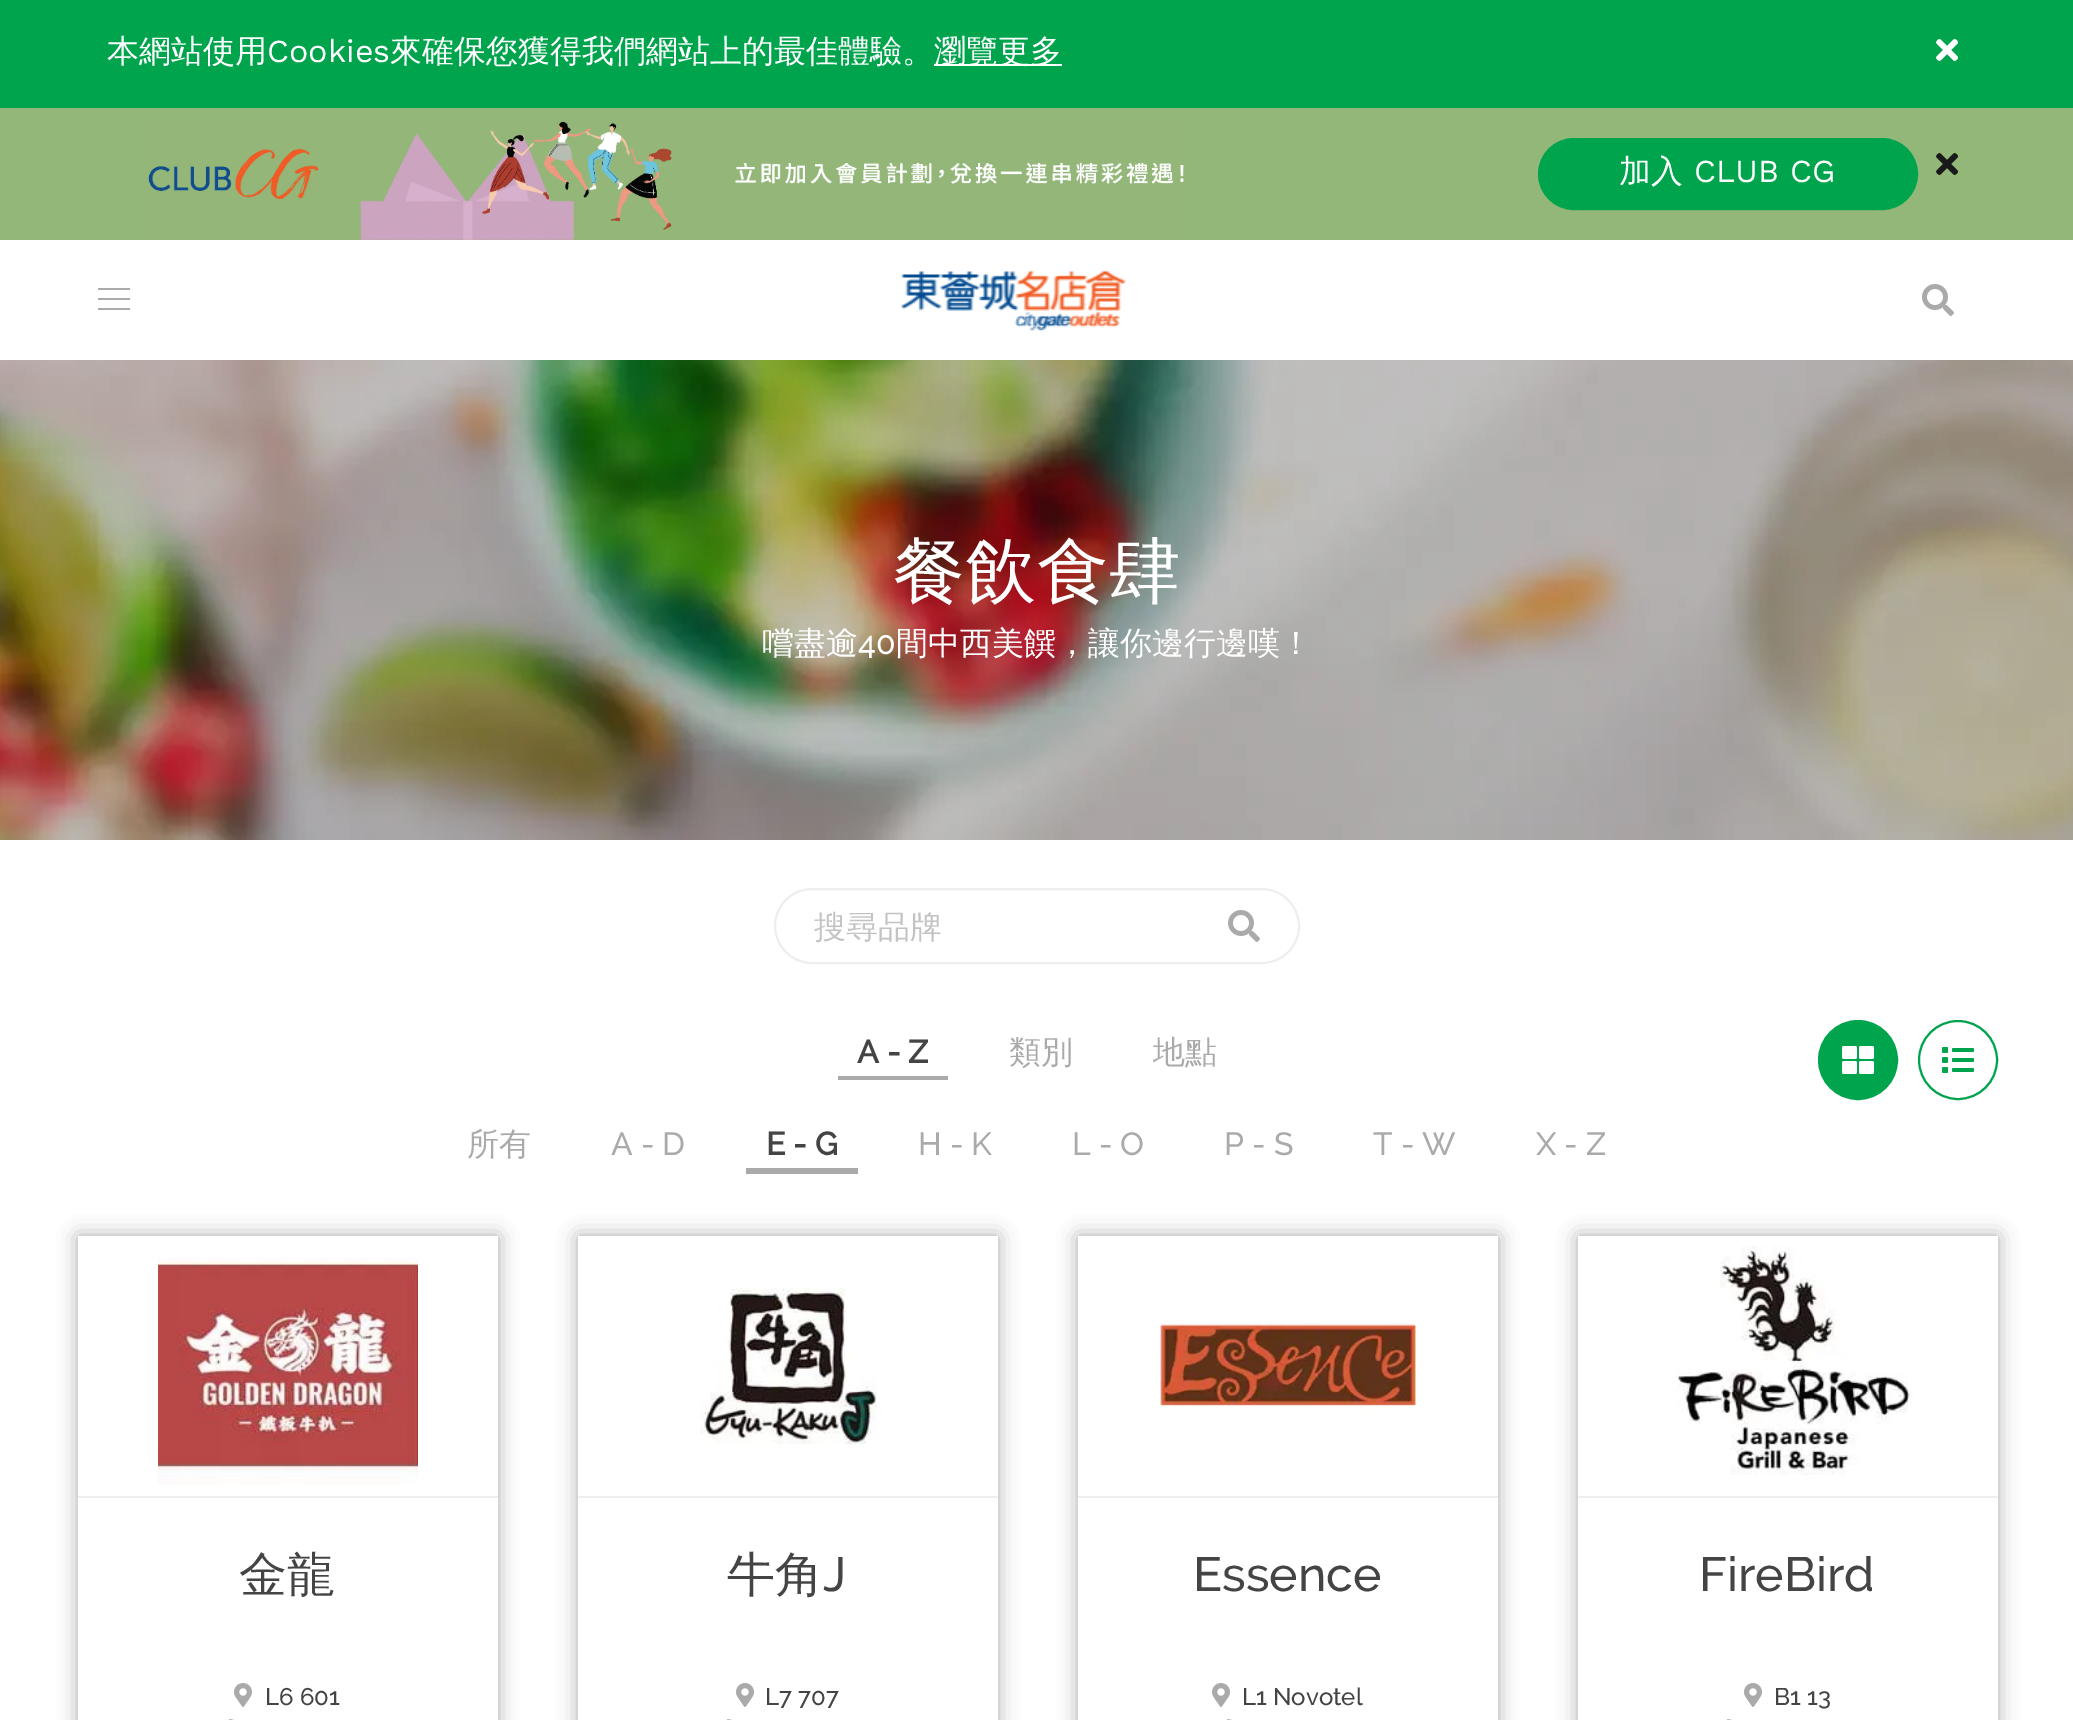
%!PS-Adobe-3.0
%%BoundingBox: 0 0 2073 1720
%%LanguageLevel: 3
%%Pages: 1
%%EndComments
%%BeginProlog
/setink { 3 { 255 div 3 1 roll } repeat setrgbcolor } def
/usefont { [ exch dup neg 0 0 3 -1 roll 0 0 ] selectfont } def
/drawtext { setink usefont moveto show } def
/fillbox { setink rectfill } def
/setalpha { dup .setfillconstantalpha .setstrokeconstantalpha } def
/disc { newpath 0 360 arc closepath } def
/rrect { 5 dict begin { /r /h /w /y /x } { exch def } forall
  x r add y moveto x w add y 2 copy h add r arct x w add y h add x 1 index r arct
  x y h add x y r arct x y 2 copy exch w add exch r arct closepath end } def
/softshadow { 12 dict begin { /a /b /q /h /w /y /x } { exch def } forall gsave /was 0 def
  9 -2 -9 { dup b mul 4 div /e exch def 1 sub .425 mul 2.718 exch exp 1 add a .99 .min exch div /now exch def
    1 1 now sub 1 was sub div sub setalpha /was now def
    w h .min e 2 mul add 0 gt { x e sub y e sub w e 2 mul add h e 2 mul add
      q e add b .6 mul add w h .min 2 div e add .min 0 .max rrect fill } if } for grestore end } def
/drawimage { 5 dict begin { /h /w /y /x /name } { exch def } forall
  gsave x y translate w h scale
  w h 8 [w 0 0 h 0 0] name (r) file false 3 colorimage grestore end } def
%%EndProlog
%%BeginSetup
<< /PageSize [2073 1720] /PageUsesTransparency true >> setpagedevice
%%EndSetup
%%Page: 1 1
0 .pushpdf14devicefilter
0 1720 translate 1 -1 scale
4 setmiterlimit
0 0 2073 1720 255 255 255 fillbox
0 0 2073 108 0 164 77 fillbox
(本網站使用) 107 62 /WenQuanYiZenHei-Medium 32 255 255 255 drawtext
(Cookies) 267 62 /WorkSans-Regular 32 255 255 255 drawtext
(來確保您獲得我們網站上的最佳體驗。) 390 62 /WenQuanYiZenHei-Medium 32 255 255 255 drawtext
934 64 128 2 255 255 255 fillbox
(瀏覽更多) 934 62 /WenQuanYiZenHei-Medium 32 255 255 255 drawtext
(assets/img1.rgb) 1936 39 22 22 drawimage
0 108 2073 132 147 183 121 fillbox
(assets/img2.rgb) 148 121 1036 119 drawimage
0 164 77 setink
1539 139 378 70 35 rrect gsave fill grestore
2 setlinewidth
stroke
(加入) 1619 182 /WenQuanYiZenHei-Medium 32 255 255 255 drawtext
(CLUB CG) 1694 182 /WorkSans-Regular 32 255 255 255 drawtext
(assets/img3.rgb) 1936 153 22 22 drawimage
98 288 32 2 170 170 170 fillbox
98 298 32 2 170 170 170 fillbox
98 308 32 2 170 170 170 fillbox
(assets/img4.rgb) 900 270 227 61 drawimage
(assets/img5.rgb) 1922 284 32 32 drawimage
(assets/img6.rgb) 0 360 2073 480 drawimage
(餐飲食肆) 893 596 /WenQuanYiZenHei-Medium 72 255 255 255 drawtext
(嚐盡逾) 762 654 /WenQuanYiZenHei-Medium 32 255 255 255 drawtext
(40) 858 654 /Raleway-Medium 32 255 255 255 drawtext
(間中西美饌，讓你邊行邊嘆！) 896 654 /WenQuanYiZenHei-Medium 32 255 255 255 drawtext
238 238 238 setink
775 889 524 74 37 rrect stroke
(搜尋品牌) 814 938 /WenQuanYiZenHei-Medium 32 195 195 195 drawtext
(assets/img5.rgb) 1228 910 32 32 drawimage
838 1076 110 4 170 170 170 fillbox
(A - Z) 857 1063 /Raleway-Bold 32 68 68 68 drawtext
(類別) 1009 1063 /WenQuanYiZenHei-Medium 32 170 170 170 drawtext
(地點) 1153 1063 /WenQuanYiZenHei-Medium 32 170 170 170 drawtext
(所有) 467 1155 /WenQuanYiZenHei-Medium 32 170 170 170 drawtext
(A - D) 611 1155 /Raleway-Medium 32 170 170 170 drawtext
746 1168 112 6 170 170 170 fillbox
(E - G) 766 1155 /Raleway-Bold 32 68 68 68 drawtext
(H - K) 918 1155 /Raleway-Medium 32 170 170 170 drawtext
(L - O) 1072 1155 /Raleway-Medium 32 170 170 170 drawtext
(P - S) 1224 1155 /Raleway-Medium 32 170 170 170 drawtext
(T - W) 1373 1155 /Raleway-Medium 32 170 170 170 drawtext
(X - Z) 1536 1155 /Raleway-Medium 32 170 170 170 drawtext
0 164 77 setink
1858 1060 39 disc gsave fill grestore
stroke
(assets/img7.rgb) 1842 1046 32 28 drawimage
1958 1060 39 disc stroke
(assets/img8.rgb) 1942 1047 32 26 drawimage
gsave
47 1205 moveto 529 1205 lineto 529 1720 lineto 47 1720 lineto closepath 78 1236 moveto 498 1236 lineto 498 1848 lineto 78 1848 lineto closepath eoclip newpath
170 170 170 setink
78 1236 420 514 0 10 1 softshadow
grestore
78 1496 420 2 238 238 238 fillbox
(assets/img9.rgb) 158 1257 260 228 drawimage
(金龍) 239 1591 /WenQuanYiZenHei-Medium 48 68 68 68 drawtext
(assets/img10.rgb) 234 1683 18 24 drawimage
(L6 601) 265 1705 /Raleway-Medium 24 68 68 68 drawtext
(assets/img11.rgb) 229 1719 5 1 drawimage
gsave
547 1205 moveto 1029 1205 lineto 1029 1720 lineto 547 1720 lineto closepath 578 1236 moveto 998 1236 lineto 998 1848 lineto 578 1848 lineto closepath eoclip newpath
170 170 170 setink
578 1236 420 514 0 10 1 softshadow
grestore
578 1496 420 2 238 238 238 fillbox
(assets/img12.rgb) 700 1288 177 157 drawimage
(牛角) 727 1591 /WenQuanYiZenHei-Medium 48 68 68 68 drawtext
(J) 823 1591 /Raleway-Medium 48 68 68 68 drawtext
(assets/img10.rgb) 736 1683 18 24 drawimage
(L7 707) 765 1705 /Raleway-Medium 24 68 68 68 drawtext
(assets/img11.rgb) 727 1719 5 1 drawimage
gsave
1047 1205 moveto 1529 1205 lineto 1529 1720 lineto 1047 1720 lineto closepath 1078 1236 moveto 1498 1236 lineto 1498 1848 lineto 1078 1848 lineto closepath eoclip newpath
170 170 170 setink
1078 1236 420 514 0 10 1 softshadow
grestore
1078 1496 420 2 238 238 238 fillbox
(assets/img13.rgb) 1160 1324 258 90 drawimage
(Essence) 1193 1591 /Raleway-Medium 48 68 68 68 drawtext
(assets/img10.rgb) 1212 1683 18 24 drawimage
(L1 Novotel) 1242 1705 /Raleway-Medium 24 68 68 68 drawtext
(assets/img11.rgb) 1227 1719 5 1 drawimage
gsave
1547 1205 moveto 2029 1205 lineto 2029 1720 lineto 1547 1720 lineto closepath 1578 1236 moveto 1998 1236 lineto 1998 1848 lineto 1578 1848 lineto closepath eoclip newpath
170 170 170 setink
1578 1236 420 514 0 10 1 softshadow
grestore
1578 1496 420 2 238 238 238 fillbox
(assets/img14.rgb) 1676 1246 237 229 drawimage
(FireBird) 1699 1591 /Raleway-Medium 48 68 68 68 drawtext
(assets/img10.rgb) 1744 1683 18 24 drawimage
(B1 13) 1774 1705 /Raleway-Medium 24 68 68 68 drawtext
(assets/img11.rgb) 1727 1719 5 1 drawimage
.poppdf14devicefilter showpage
%%EOF
